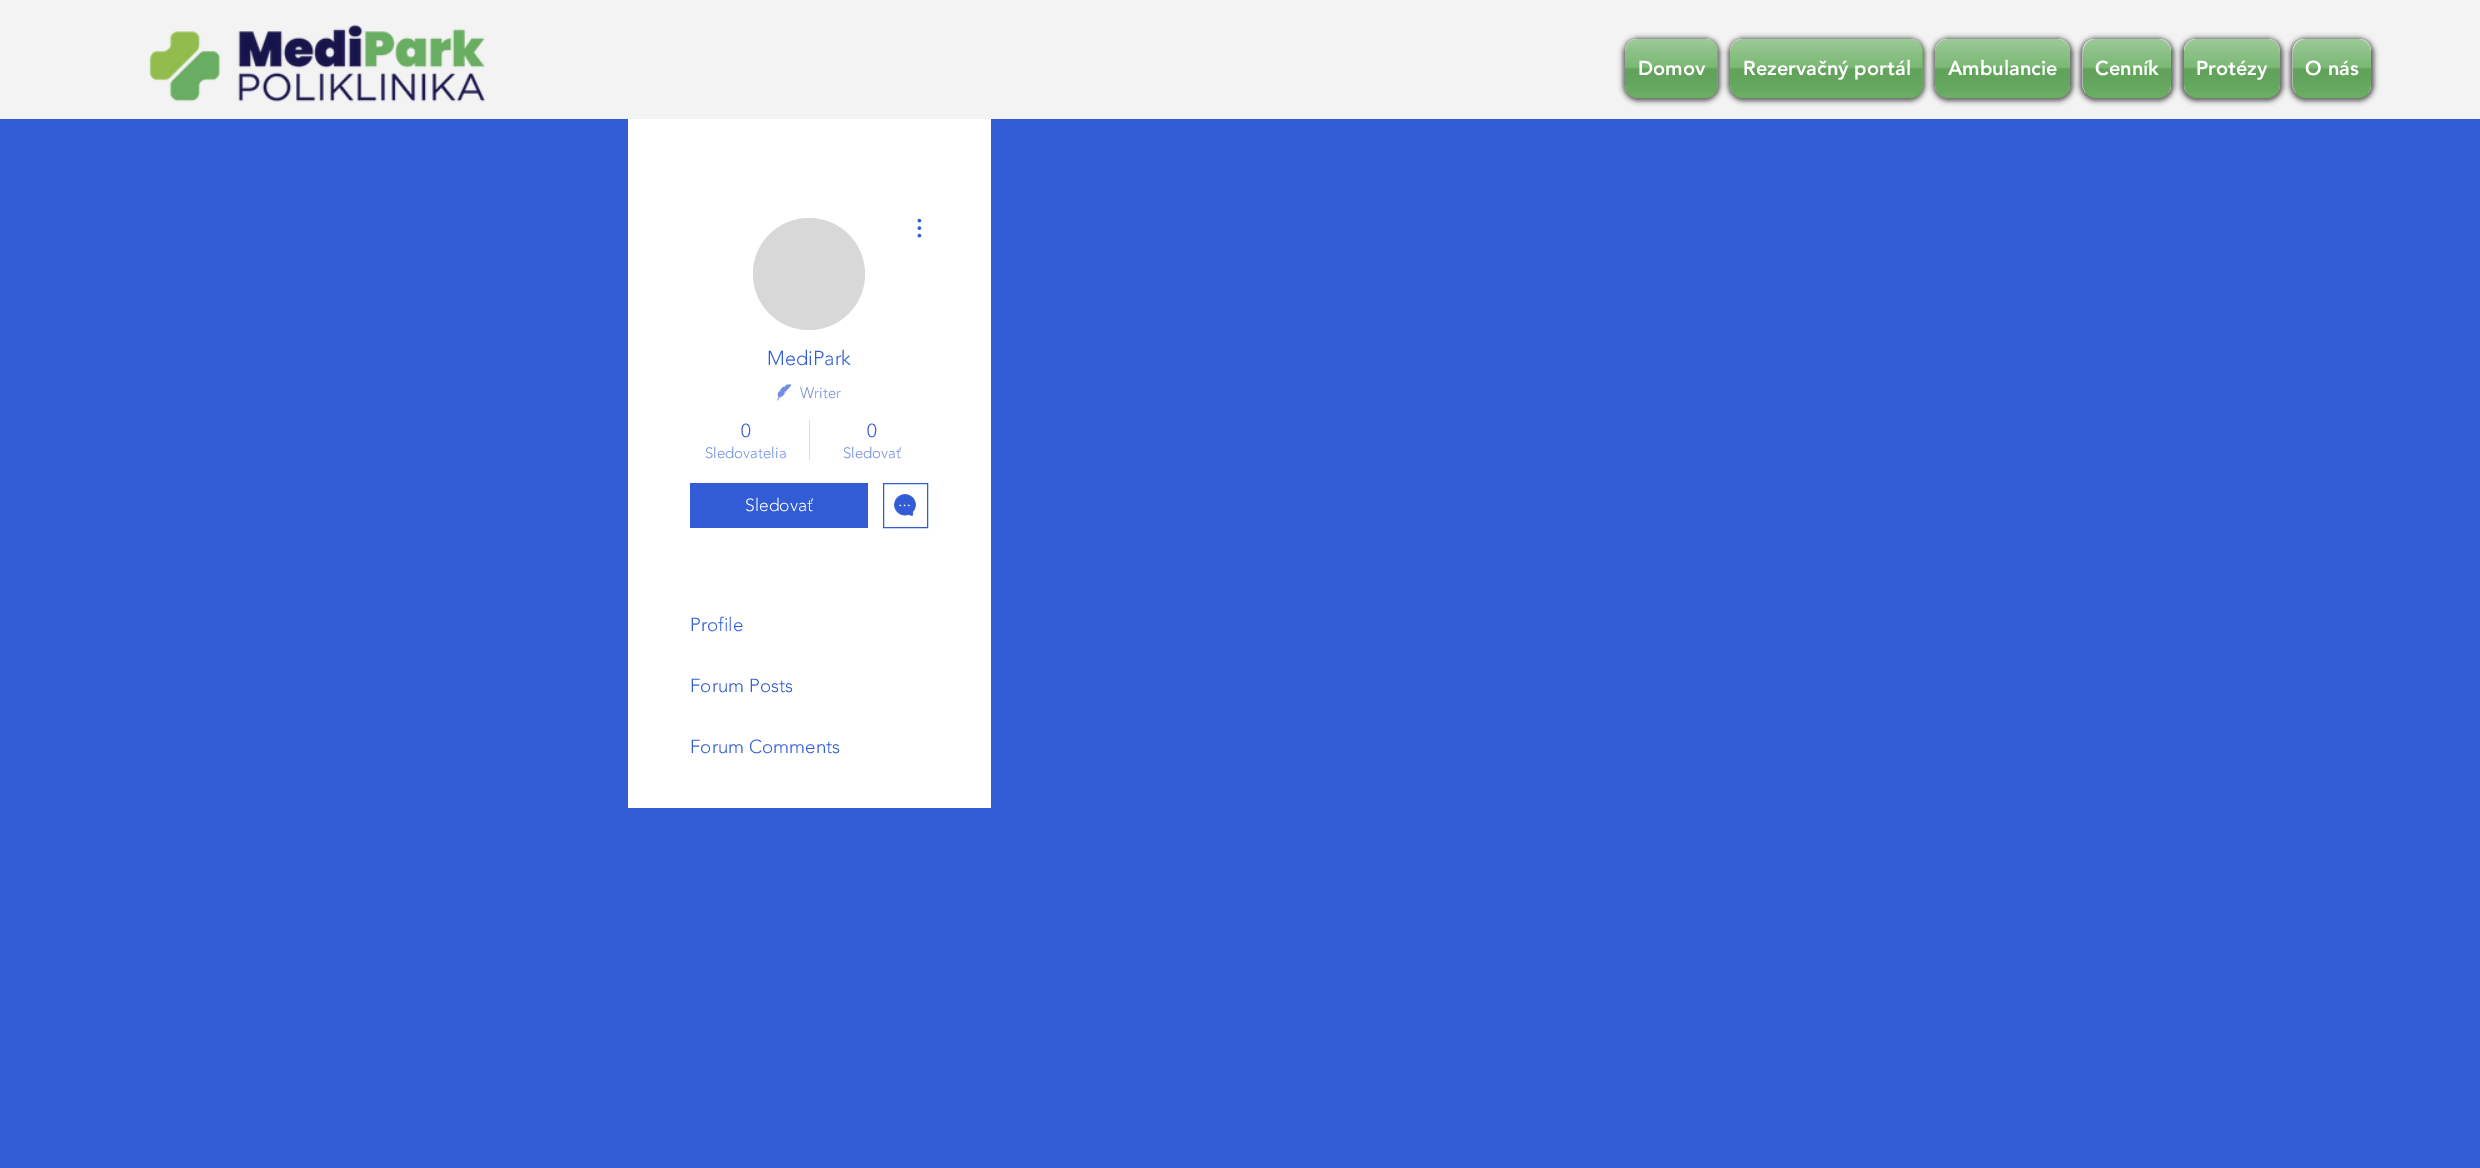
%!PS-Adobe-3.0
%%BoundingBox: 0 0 2480 1168
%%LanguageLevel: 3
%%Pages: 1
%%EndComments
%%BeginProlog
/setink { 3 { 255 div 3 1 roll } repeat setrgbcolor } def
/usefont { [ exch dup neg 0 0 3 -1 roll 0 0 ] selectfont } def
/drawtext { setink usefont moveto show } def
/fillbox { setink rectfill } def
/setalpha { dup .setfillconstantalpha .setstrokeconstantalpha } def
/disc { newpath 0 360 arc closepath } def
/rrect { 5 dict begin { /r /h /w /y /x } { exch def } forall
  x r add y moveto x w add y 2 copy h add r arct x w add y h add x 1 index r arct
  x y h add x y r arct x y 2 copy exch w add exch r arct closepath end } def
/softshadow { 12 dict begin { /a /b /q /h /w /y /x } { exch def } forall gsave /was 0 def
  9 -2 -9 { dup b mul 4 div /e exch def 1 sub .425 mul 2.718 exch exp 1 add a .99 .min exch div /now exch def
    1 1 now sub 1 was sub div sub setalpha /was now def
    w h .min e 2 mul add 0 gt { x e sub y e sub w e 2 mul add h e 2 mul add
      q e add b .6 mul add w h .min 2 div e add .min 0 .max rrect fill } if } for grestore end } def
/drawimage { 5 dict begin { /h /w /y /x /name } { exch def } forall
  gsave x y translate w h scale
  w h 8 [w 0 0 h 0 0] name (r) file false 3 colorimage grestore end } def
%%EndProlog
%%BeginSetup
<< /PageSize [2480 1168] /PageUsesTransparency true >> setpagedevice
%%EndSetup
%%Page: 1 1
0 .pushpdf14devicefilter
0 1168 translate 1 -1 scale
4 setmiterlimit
0 0 2480 1168 49 92 213 fillbox
0 0 2480 119 243 243 243 fillbox
(assets/img1.rgb) 149 24 337 78 drawimage
0 0 0 setink
1623 38 97 63 15 2.5 0.6 softshadow
105 174 98 setink
1625 39 93 59 13 rrect fill
(assets/img2.rgb) 1625 39 93 54 drawimage
(Domov) 1638 75 /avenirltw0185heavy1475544-Black 20 255 255 255 drawtext
0 0 0 setink
1728 38 197 63 15 2.5 0.6 softshadow
105 174 98 setink
1730 39 193 59 13 rrect fill
(assets/img3.rgb) 1730 39 193 54 drawimage
(Rezervačný portál) 1743 75 /avenirltw0185heavy1475544-Black 20 255 255 255 drawtext
0 0 0 setink
1933 38 140 63 15 2.5 0.6 softshadow
105 174 98 setink
1935 39 135 59 13 rrect fill
(assets/img4.rgb) 1935 39 135 54 drawimage
(Ambulancie) 1948 75 /avenirltw0185heavy1475544-Black 20 255 255 255 drawtext
0 0 0 setink
2080 38 94 63 15 2.5 0.6 softshadow
105 174 98 setink
2083 39 88 59 13 rrect fill
(assets/img5.rgb) 2082 39 89 54 drawimage
(Cenník) 2095 75 /avenirltw0185heavy1475544-Black 20 255 255 255 drawtext
0 0 0 setink
2181 38 102 63 15 2.5 0.6 softshadow
105 174 98 setink
2184 39 96 59 13 rrect fill
(assets/img6.rgb) 2184 39 96 54 drawimage
(Protézy) 2196 75 /avenirltw0185heavy1475544-Black 20 255 255 255 drawtext
0 0 0 setink
2290 38 84 63 15 2.5 0.6 softshadow
105 174 98 setink
2293 39 78 59 13 rrect fill
(assets/img7.rgb) 2292 39 79 54 drawimage
(O nás) 2305 75 /avenirltw0185heavy1475544-Black 20 255 255 255 drawtext
628 119 363 689 255 255 255 fillbox
216 216 216 setink
809 274 56 disc fill
(assets/img8.rgb) 917 218 5 20 drawimage
(MediPark) 767 365 /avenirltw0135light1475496-Light 20 49 92 213 drawtext
(assets/img9.rgb) 777 384 15 17 drawimage
(Writer) 800 398 /avenirltw0135light1475496-Light 15 111 141 226 drawtext
(0) 741 437 /avenirltw0135light1475496-Light 18.75 49 92 213 drawtext
(Sledovatelia) 705 458 /avenirltw0135light1475496-Light 15 111 141 226 drawtext
809 420 1 40 214 222 247 fillbox
(0) 867 437 /avenirltw0135light1475496-Light 18.75 49 92 213 drawtext
(Sledovať) 843 458 /avenirltw0135light1475496-Light 15 111 141 226 drawtext
690 483 178 45 49 92 213 fillbox
(Sledovať) 745 511 /avenirltw0135light1475496-Light 17.5 255 255 255 drawtext
49 92 213 setink
883.5 483.5 44 44 rectstroke
(assets/img10.rgb) 894 494 22 22 drawimage
(Profile) 690 631 /avenirltw0135light1475496-Light 18.75 49 92 213 drawtext
(Forum Posts) 690 692 /avenirltw0135light1475496-Light 18.75 49 92 213 drawtext
(Forum Comments) 690 753 /avenirltw0135light1475496-Light 18.75 49 92 213 drawtext
.poppdf14devicefilter showpage
%%EOF
